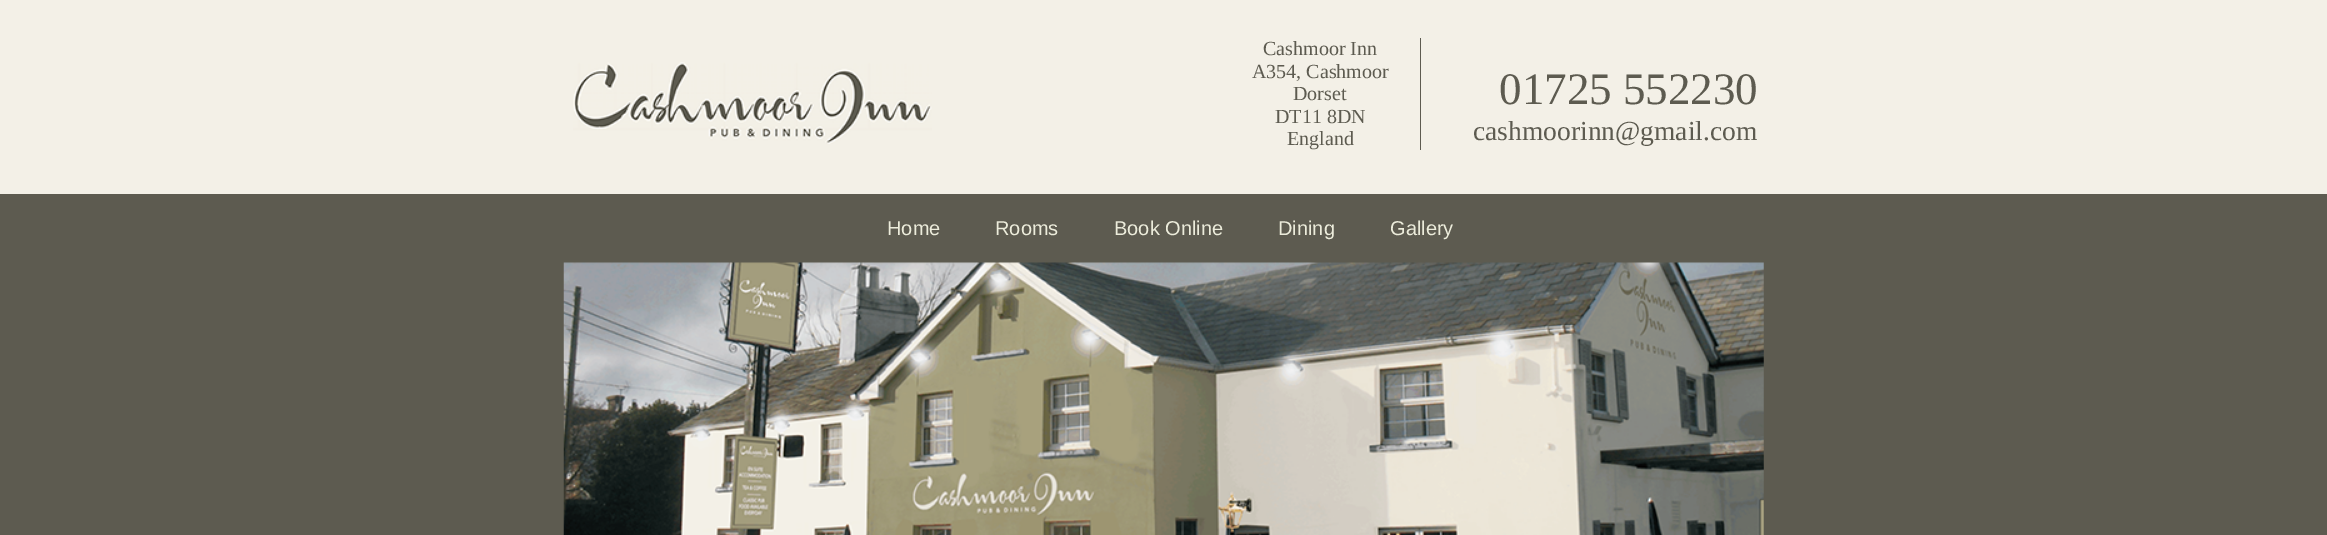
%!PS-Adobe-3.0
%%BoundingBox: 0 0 2327 535
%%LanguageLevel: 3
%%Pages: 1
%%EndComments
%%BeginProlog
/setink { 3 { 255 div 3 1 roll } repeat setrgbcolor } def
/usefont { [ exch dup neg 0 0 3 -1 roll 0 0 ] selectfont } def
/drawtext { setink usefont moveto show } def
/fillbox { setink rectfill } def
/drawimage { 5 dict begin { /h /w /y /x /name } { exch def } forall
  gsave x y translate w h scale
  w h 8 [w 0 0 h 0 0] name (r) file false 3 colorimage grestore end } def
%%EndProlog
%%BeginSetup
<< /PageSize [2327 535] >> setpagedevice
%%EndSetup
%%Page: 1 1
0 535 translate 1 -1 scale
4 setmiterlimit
0 0 2327 535 243 240 231 fillbox
(assets/img1.rgb) 573 62 359 82 drawimage
1420 38 1 112 93 91 80 fillbox
(Cashmoor Inn) 1263 55 /LiberationSerif-Regular 20 93 91 80 drawtext
(A354, Cashmoor) 1252 78 /LiberationSerif-Regular 20 93 91 80 drawtext
(Dorset) 1293 100 /LiberationSerif-Regular 20 93 91 80 drawtext
(DT11 8DN) 1275 123 /LiberationSerif-Regular 20 93 91 80 drawtext
(England) 1287 145 /LiberationSerif-Regular 20 93 91 80 drawtext
(01725 552230) 1499 104 /LiberationSerif-Regular 45 93 91 80 drawtext
(cashmoorinn@gmail.com) 1473 140 /LiberationSerif-Regular 27.5 93 91 80 drawtext
0 194 2327 341 93 91 80 fillbox
(Home) 887 235 /LiberationSans-Regular 20 236 236 219 drawtext
(Rooms) 995 235 /LiberationSans-Regular 20 236 236 219 drawtext
(Book Online) 1114 235 /LiberationSans-Regular 20 236 236 219 drawtext
(Dining) 1278 235 /LiberationSans-Regular 20 236 236 219 drawtext
(Gallery) 1390 235 /LiberationSans-Regular 20 236 236 219 drawtext
(assets/img2.rgb) 563 262 1201 273 drawimage
showpage
%%EOF
